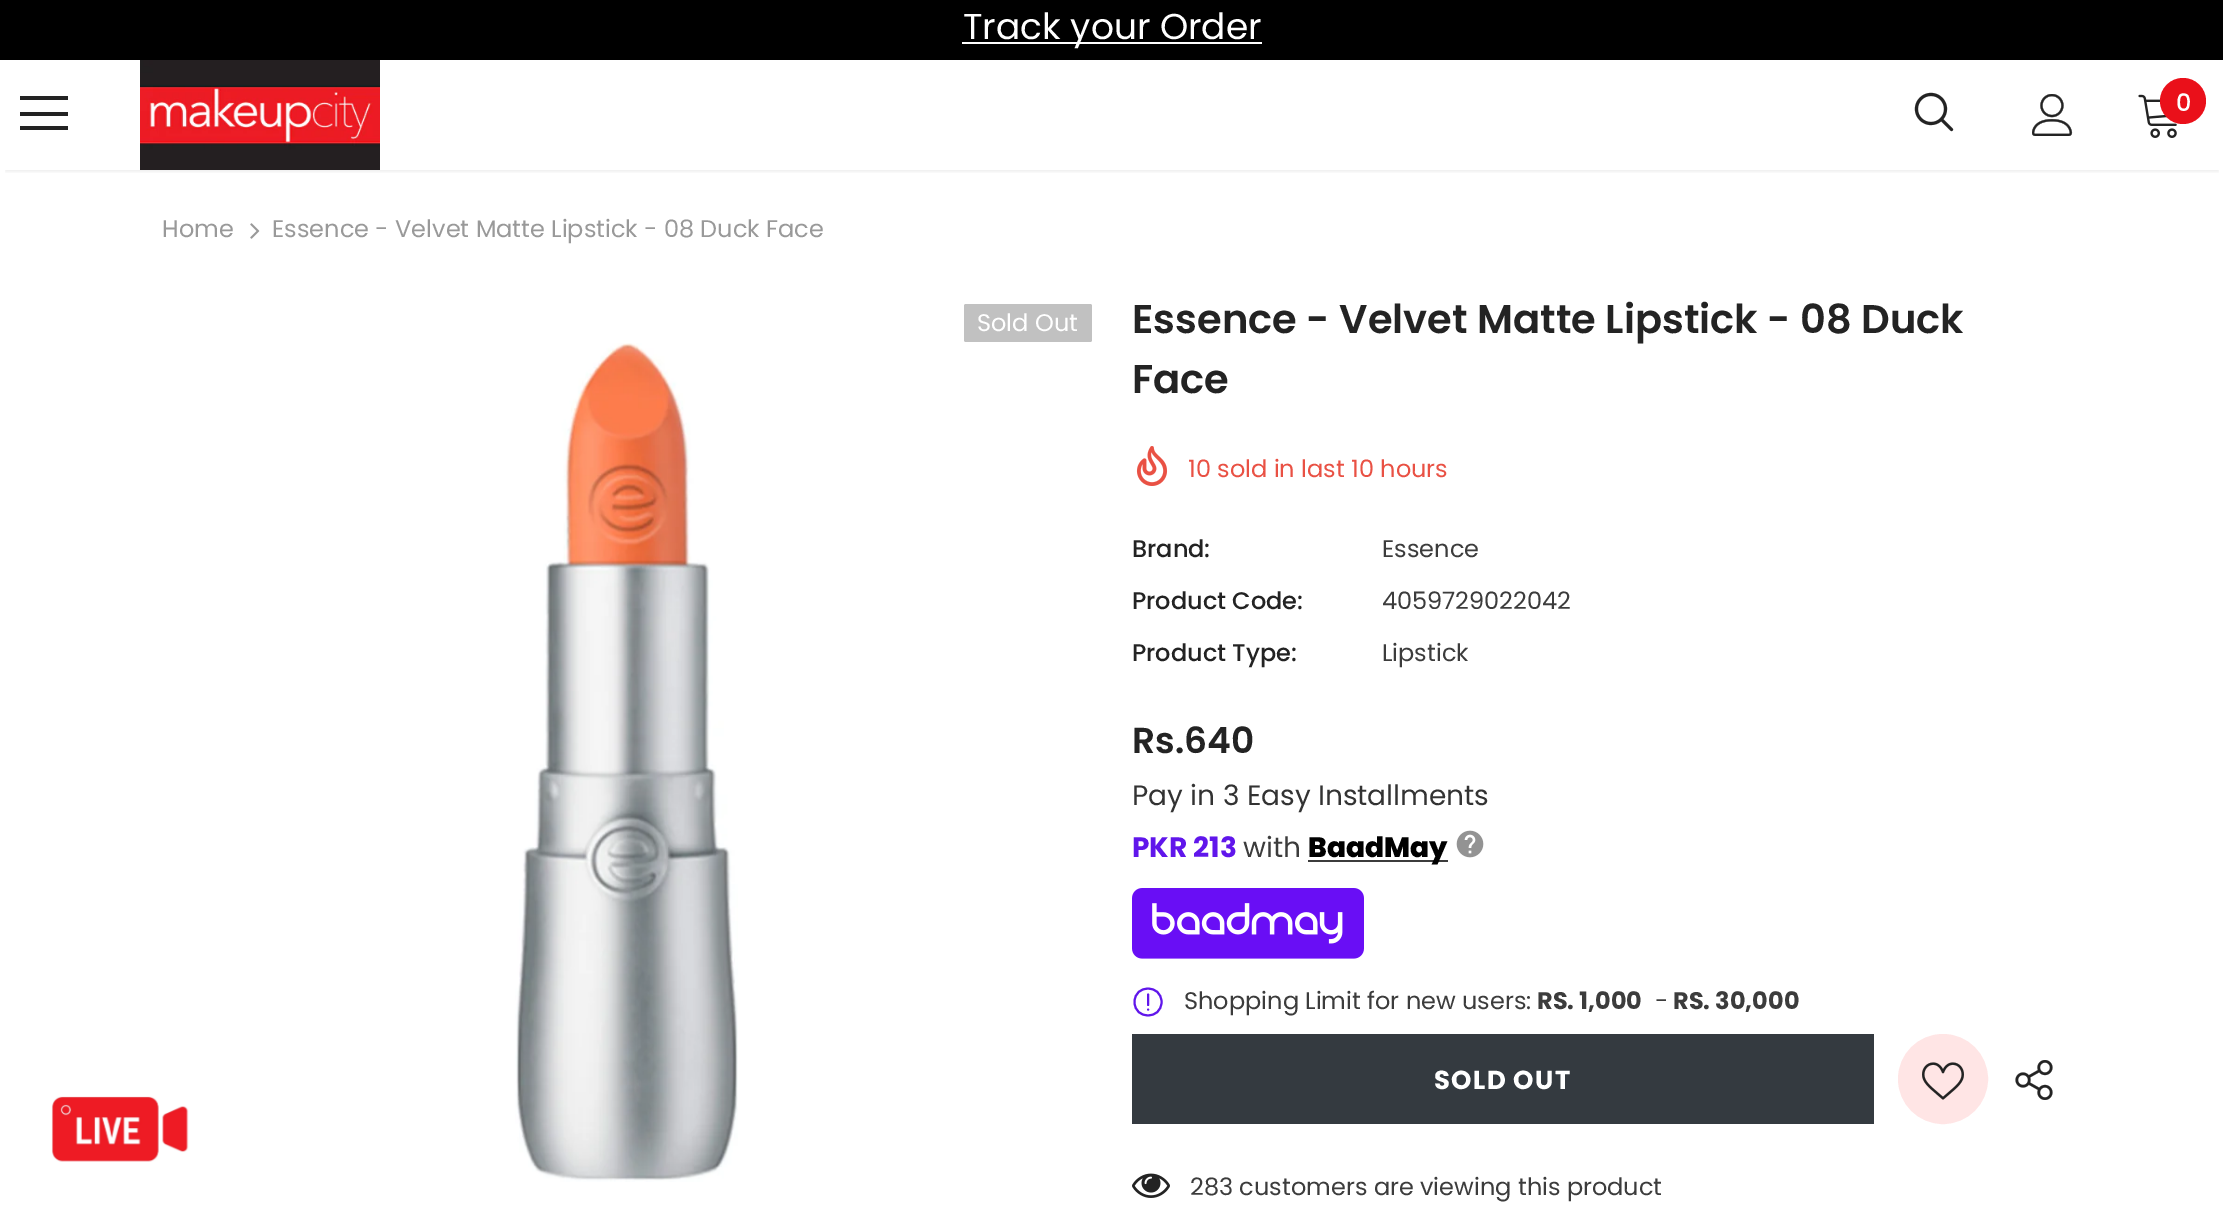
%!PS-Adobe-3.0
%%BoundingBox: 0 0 2223 1209
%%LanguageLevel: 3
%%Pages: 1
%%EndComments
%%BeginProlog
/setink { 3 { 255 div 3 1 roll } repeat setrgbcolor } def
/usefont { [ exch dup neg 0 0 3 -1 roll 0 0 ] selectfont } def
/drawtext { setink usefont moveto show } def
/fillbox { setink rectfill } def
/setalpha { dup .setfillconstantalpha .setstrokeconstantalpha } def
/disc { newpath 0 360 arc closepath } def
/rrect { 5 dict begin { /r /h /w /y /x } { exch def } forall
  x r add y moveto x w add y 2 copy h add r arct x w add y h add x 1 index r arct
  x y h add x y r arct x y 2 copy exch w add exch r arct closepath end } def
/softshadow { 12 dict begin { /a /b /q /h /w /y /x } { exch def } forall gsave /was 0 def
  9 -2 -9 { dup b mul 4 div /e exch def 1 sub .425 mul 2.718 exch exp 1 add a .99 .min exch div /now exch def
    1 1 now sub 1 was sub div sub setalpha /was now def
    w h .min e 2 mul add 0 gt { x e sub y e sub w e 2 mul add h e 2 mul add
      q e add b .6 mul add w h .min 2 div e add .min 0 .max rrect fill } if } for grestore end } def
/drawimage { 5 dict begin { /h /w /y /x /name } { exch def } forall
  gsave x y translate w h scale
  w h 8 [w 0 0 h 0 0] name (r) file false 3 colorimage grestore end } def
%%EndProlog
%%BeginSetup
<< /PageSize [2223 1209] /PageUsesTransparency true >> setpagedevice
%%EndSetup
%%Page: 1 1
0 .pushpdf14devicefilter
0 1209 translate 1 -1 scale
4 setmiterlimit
0 0 2223 1209 255 255 255 fillbox
0 0 2223 60 0 0 0 fillbox
962 42 300 2 255 255 255 fillbox
(Track your Order) 963 39 /Poppins-Regular 36 255 255 255 drawtext
gsave
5 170 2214 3 rectclip
0 0 0 setink
6 72 2212 98 0 3 0.12 softshadow
grestore
20 96 48 4 35 35 35 fillbox
20 112 48 4 35 35 35 fillbox
20 126 48 4 35 35 35 fillbox
(assets/img1.rgb) 140 60 240 110 drawimage
(assets/img2.rgb) 1914 92 40 40 drawimage
(assets/img3.rgb) 2032 94 41 42 drawimage
(assets/img4.rgb) 2138 94 39 44 drawimage
234 16 26 setink
2183 101 23 disc fill
(0) 2176 111 /Poppins-Medium 24 255 255 255 drawtext
(assets/img5.rgb) 51 1096 138 66 drawimage
(Home) 162 237 /Poppins-Regular 24 153 153 153 drawtext
(assets/img6.rgb) 250 223 10 16 drawimage
(Essence - Velvet Matte Lipstick - 08 Duck Face) 272 237 /Poppins-Regular 24 153 153 153 drawtext
193 193 193 setink
964 304 128 38 2 rrect fill
(Sold Out) 977 331 /Poppins-Regular 24 255 255 255 drawtext
(assets/img7.rgb) 515 343 223 839 drawimage
(Essence - Velvet Matte Lipstick - 08 Duck) 1132 333 /Poppins-SemiBold 40 35 35 35 drawtext
(Face) 1132 393 /Poppins-SemiBold 40 35 35 35 drawtext
(assets/img8.rgb) 1136 446 32 40 drawimage
(10 sold in last 10 hours) 1188 477 /Poppins-Regular 24 233 81 68 drawtext
(Brand:) 1132 557 /Poppins-Medium 24 35 35 35 drawtext
(Essence) 1382 557 /Poppins-Regular 24 60 60 60 drawtext
(Product Code:) 1132 609 /Poppins-Medium 24 35 35 35 drawtext
(4059729022042) 1382 609 /Poppins-Regular 24 60 60 60 drawtext
(Product Type:) 1132 661 /Poppins-Medium 24 35 35 35 drawtext
(Lipstick) 1382 661 /Poppins-Regular 24 60 60 60 drawtext
(Rs.640) 1132 753 /Poppins-SemiBold 36 35 35 35 drawtext
(Pay in 3 Easy Installments) 1132 805 /Poppins-Regular 28 51 51 51 drawtext
(PKR 213) 1132 857 /Poppins-Bold 28 96 22 235 drawtext
(with) 1243 857 /Poppins-Regular 28 60 60 60 drawtext
1308 860 140 2 60 60 60 fillbox
(BaadMay) 1308 857 /Poppins-ExtraBold 28 0 0 0 drawtext
(assets/img9.rgb) 1456 830 28 28 drawimage
(assets/img10.rgb) 1132 888 232 71 drawimage
96 22 235 setink
2 setlinewidth
1 setlinecap
1 setlinejoin
1148 1009.5 moveto 1148 1009.5 lineto 1148 994.5 moveto 1148 1005 lineto 1161.5 1002 moveto 1161.5 1020 1134.5 1020 1134.5 1002 curveto 1134.5 984 1161.5 984 1161.5 1002 curveto closepath stroke
(Shopping Limit for new users:) 1184 1009 /Poppins-Regular 24 60 60 60 drawtext
(RS. 1,000) 1537 1009 /Poppins-Bold 24 60 60 60 drawtext
(-) 1655 1009 /Poppins-Regular 24 60 60 60 drawtext
(RS. 30,000) 1673 1009 /Poppins-Bold 24 60 60 60 drawtext
1132 1034 742 90 52 58 64 fillbox
/Poppins-Bold 26 usefont
255 255 255 setink
1434 1089 moveto 1.25 0 (SOLD OUT) ashow
255 229 229 setink
1943 1079 44 disc gsave fill grestore
0 setlinecap
0 setlinejoin
stroke
(assets/img11.rgb) 1922 1062 42 38 drawimage
(assets/img12.rgb) 2015 1060 38 40 drawimage
(assets/img13.rgb) 1132 1173 38 25 drawimage
(283 customers are viewing this product) 1190 1195 /Poppins-Regular 24 60 60 60 drawtext
.poppdf14devicefilter showpage
%%EOF
